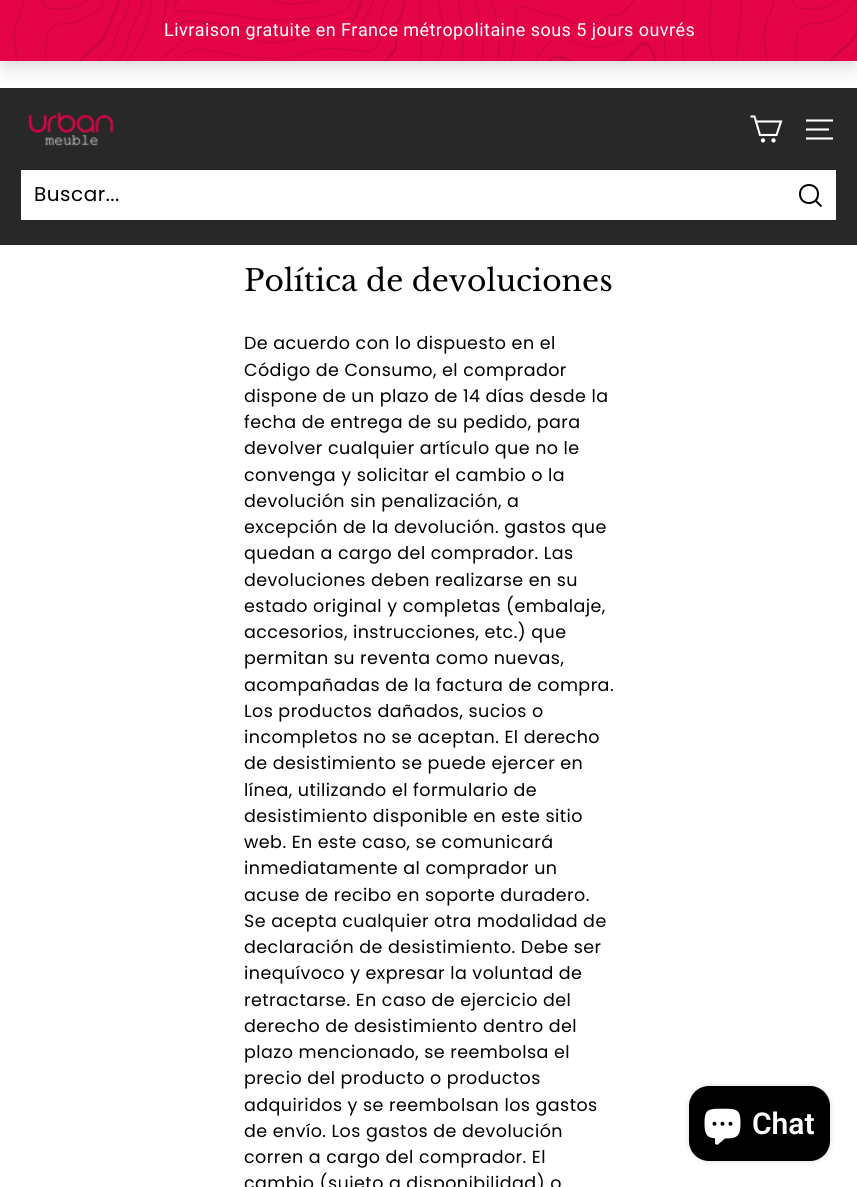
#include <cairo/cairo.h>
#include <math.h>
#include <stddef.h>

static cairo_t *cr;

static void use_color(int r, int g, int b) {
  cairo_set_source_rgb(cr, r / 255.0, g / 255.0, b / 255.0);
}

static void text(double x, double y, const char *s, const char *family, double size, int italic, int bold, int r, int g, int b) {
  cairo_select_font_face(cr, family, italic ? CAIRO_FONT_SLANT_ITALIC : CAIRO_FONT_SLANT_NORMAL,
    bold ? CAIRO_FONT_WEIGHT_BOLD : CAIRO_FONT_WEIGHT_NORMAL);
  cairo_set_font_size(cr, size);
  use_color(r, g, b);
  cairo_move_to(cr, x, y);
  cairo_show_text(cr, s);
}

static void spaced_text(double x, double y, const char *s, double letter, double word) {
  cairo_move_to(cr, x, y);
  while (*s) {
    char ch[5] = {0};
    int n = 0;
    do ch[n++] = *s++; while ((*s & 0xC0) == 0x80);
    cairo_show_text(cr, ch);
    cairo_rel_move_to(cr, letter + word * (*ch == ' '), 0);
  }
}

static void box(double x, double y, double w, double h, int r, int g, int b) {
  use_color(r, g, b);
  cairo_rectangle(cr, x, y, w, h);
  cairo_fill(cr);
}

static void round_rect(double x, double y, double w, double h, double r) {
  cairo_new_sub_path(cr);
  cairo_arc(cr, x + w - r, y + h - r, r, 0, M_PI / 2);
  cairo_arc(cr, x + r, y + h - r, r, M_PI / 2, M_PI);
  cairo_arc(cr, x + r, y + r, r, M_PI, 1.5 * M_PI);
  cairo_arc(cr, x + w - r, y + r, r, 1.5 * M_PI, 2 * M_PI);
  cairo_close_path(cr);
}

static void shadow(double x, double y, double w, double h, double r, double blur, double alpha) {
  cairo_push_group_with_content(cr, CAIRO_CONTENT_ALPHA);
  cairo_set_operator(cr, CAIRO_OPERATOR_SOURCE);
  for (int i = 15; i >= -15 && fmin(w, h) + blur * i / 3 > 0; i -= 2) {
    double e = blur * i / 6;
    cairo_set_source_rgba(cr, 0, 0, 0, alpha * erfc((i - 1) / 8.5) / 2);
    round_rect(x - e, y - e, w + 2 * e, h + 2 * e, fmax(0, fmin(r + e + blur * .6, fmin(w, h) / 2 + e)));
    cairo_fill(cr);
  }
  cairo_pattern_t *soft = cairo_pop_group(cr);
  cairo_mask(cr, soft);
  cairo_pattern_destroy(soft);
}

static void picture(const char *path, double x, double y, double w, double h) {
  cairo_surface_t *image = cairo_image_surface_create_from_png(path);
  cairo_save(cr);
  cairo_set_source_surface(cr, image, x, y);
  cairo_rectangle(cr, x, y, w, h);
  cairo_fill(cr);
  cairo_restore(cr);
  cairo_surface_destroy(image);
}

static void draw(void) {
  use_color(255, 255, 255);
  cairo_paint(cr);
  use_color(0, 0, 0);
  shadow(3, 8, 852, 56, 0, 4, 0.05);
  box(0, 88, 857, 82, 40, 40, 40);
  use_color(0, 0, 0);
  shadow(4, 16, 850, 54, 0, 9.5, 0.1);
  box(0, 0, 857, 61, 229, 4, 72);
  picture("img_01.png", 13, 0, 844, 62);
  picture("img_02.png", 28, 112, 86, 34);
  cairo_new_path(cr);
  cairo_move_to(cr, 756, 121.5);
  cairo_line_to(cr, 781, 121.5);
  cairo_line_to(cr, 776.5, 135);
  cairo_line_to(cr, 760, 135);
  cairo_line_to(cr, 754.5, 116.5);
  cairo_line_to(cr, 750.5, 116.5);
  use_color(255, 255, 255);
  cairo_set_line_width(cr, 2.1);
  cairo_stroke(cr);
  cairo_arc(cr, 763, 140.4, 1.1, 0, 2 * M_PI);
  cairo_stroke(cr);
  cairo_arc(cr, 773.5, 140.4, 1.1, 0, 2 * M_PI);
  cairo_stroke(cr);
  cairo_new_path(cr);
  cairo_move_to(cr, 806, 120.5);
  cairo_line_to(cr, 833, 120.5);
  cairo_move_to(cr, 806, 129.5);
  cairo_line_to(cr, 829, 129.5);
  cairo_move_to(cr, 806, 138.5);
  cairo_line_to(cr, 833, 138.5);
  cairo_stroke(cr);
  use_color(40, 40, 40);
  cairo_new_path(cr);
  cairo_move_to(cr, 0, 170);
  cairo_line_to(cr, 0, 245);
  cairo_line_to(cr, 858, 245);
  cairo_line_to(cr, 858, 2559);
  cairo_line_to(cr, 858, 170);
  cairo_close_path(cr);
  cairo_fill(cr);
  box(21, 170, 815, 50, 255, 255, 255);
  cairo_new_path(cr);
  cairo_move_to(cr, 818, 194);
  cairo_curve_to(cr, 818, 206, 800, 206, 800, 194);
  cairo_curve_to(cr, 800, 182, 818, 182, 818, 194);
  cairo_close_path(cr);
  cairo_move_to(cr, 821.5, 206.5);
  cairo_line_to(cr, 815.5, 200.5);
  use_color(0, 0, 0);
  cairo_set_line_width(cr, 2);
  cairo_stroke(cr);
  use_color(0, 0, 0);
  shadow(689, 1086, 141, 75, 20, 3, 0.15);
  use_color(0, 0, 0);
  round_rect(689, 1086, 141, 75, 20);
  cairo_fill(cr);
  picture("img_03.png", 704, 1108, 37, 37);
  cairo_select_font_face(cr, "Roboto", CAIRO_FONT_SLANT_NORMAL, CAIRO_FONT_WEIGHT_NORMAL);
  cairo_set_font_size(cr, 18);
  use_color(255, 255, 255);
  spaced_text(164, 36, "Livraison gratuite en France métropolitaine sous 5 jours ouvrés", 0.45, 0);
  cairo_select_font_face(cr, "Poppins", CAIRO_FONT_SLANT_NORMAL, CAIRO_FONT_WEIGHT_NORMAL);
  cairo_set_font_size(cr, 20);
  use_color(0, 0, 0);
  spaced_text(34, 201, "Buscar...", 0.5, 0);
  text(244, 291, "Política de devoluciones", "Libre Baskerville", 29.75, 0, 0, 0, 0, 0);
  cairo_select_font_face(cr, "Poppins", CAIRO_FONT_SLANT_NORMAL, CAIRO_FONT_WEIGHT_NORMAL);
  cairo_set_font_size(cr, 17.5);
  spaced_text(244, 349, "De acuerdo con lo dispuesto en el", 0.45, 0);
  spaced_text(244, 376, "Código de Consumo, el comprador", 0.45, 0);
  spaced_text(244, 402, "dispone de un plazo de 14 días desde la", 0.45, 0);
  spaced_text(244, 428, "fecha de entrega de su pedido, para", 0.45, 0);
  spaced_text(244, 454, "devolver cualquier artículo que no le", 0.45, 0);
  spaced_text(244, 481, "convenga y solicitar el cambio o la", 0.45, 0);
  spaced_text(244, 507, "devolución sin penalización, a", 0.45, 0);
  spaced_text(244, 533, "excepción de la devolución. gastos que", 0.45, 0);
  spaced_text(244, 559, "quedan a cargo del comprador. Las", 0.45, 0);
  spaced_text(244, 586, "devoluciones deben realizarse en su", 0.45, 0);
  spaced_text(244, 612, "estado original y completas (embalaje,", 0.45, 0);
  spaced_text(244, 638, "accesorios, instrucciones, etc.) que", 0.45, 0);
  spaced_text(244, 664, "permitan su reventa como nuevas,", 0.45, 0);
  spaced_text(244, 691, "acompañadas de la factura de compra.", 0.45, 0);
  spaced_text(244, 717, "Los productos dañados, sucios o", 0.45, 0);
  spaced_text(244, 743, "incompletos no se aceptan. El derecho", 0.45, 0);
  spaced_text(244, 769, "de desistimiento se puede ejercer en", 0.45, 0);
  spaced_text(244, 796, "línea, utilizando el formulario de", 0.45, 0);
  spaced_text(244, 822, "desistimiento disponible en este sitio", 0.45, 0);
  spaced_text(244, 848, "web. En este caso, se comunicará", 0.45, 0);
  spaced_text(244, 874, "inmediatamente al comprador un", 0.45, 0);
  spaced_text(244, 901, "acuse de recibo en soporte duradero.", 0.45, 0);
  spaced_text(244, 927, "Se acepta cualquier otra modalidad de", 0.45, 0);
  spaced_text(244, 953, "declaración de desistimiento. Debe ser", 0.45, 0);
  spaced_text(244, 979, "inequívoco y expresar la voluntad de", 0.45, 0);
  spaced_text(244, 1006, "retractarse. En caso de ejercicio del", 0.45, 0);
  spaced_text(244, 1032, "derecho de desistimiento dentro del", 0.45, 0);
  spaced_text(244, 1058, "plazo mencionado, se reembolsa el", 0.45, 0);
  spaced_text(244, 1084, "precio del producto o productos", 0.45, 0);
  spaced_text(244, 1111, "adquiridos y se reembolsan los gastos", 0.45, 0);
  spaced_text(244, 1137, "de envío. Los gastos de devolución", 0.45, 0);
  spaced_text(244, 1163, "corren a cargo del comprador. El", 0.45, 0);
  spaced_text(244, 1189, "cambio (sujeto a disponibilidad) o", 0.45, 0);
  text(752, 1134, "Chat", "Roboto SemiBold", 30, 0, 0, 255, 255, 255);
}

int main(void) {
  cairo_surface_t *surface = cairo_image_surface_create(CAIRO_FORMAT_RGB24, 857, 1187);
  cr = cairo_create(surface);
  cairo_font_options_t *options = cairo_font_options_create();
  cairo_font_options_set_hint_metrics(options, CAIRO_HINT_METRICS_OFF);
  cairo_font_options_set_hint_style(options, CAIRO_HINT_STYLE_NONE);
  cairo_set_font_options(cr, options);
  cairo_set_miter_limit(cr, 4);
  draw();
  cairo_surface_write_to_png(surface, "out.png");
  cairo_font_options_destroy(options);
  cairo_destroy(cr);
  cairo_surface_destroy(surface);
  return 0;
}
